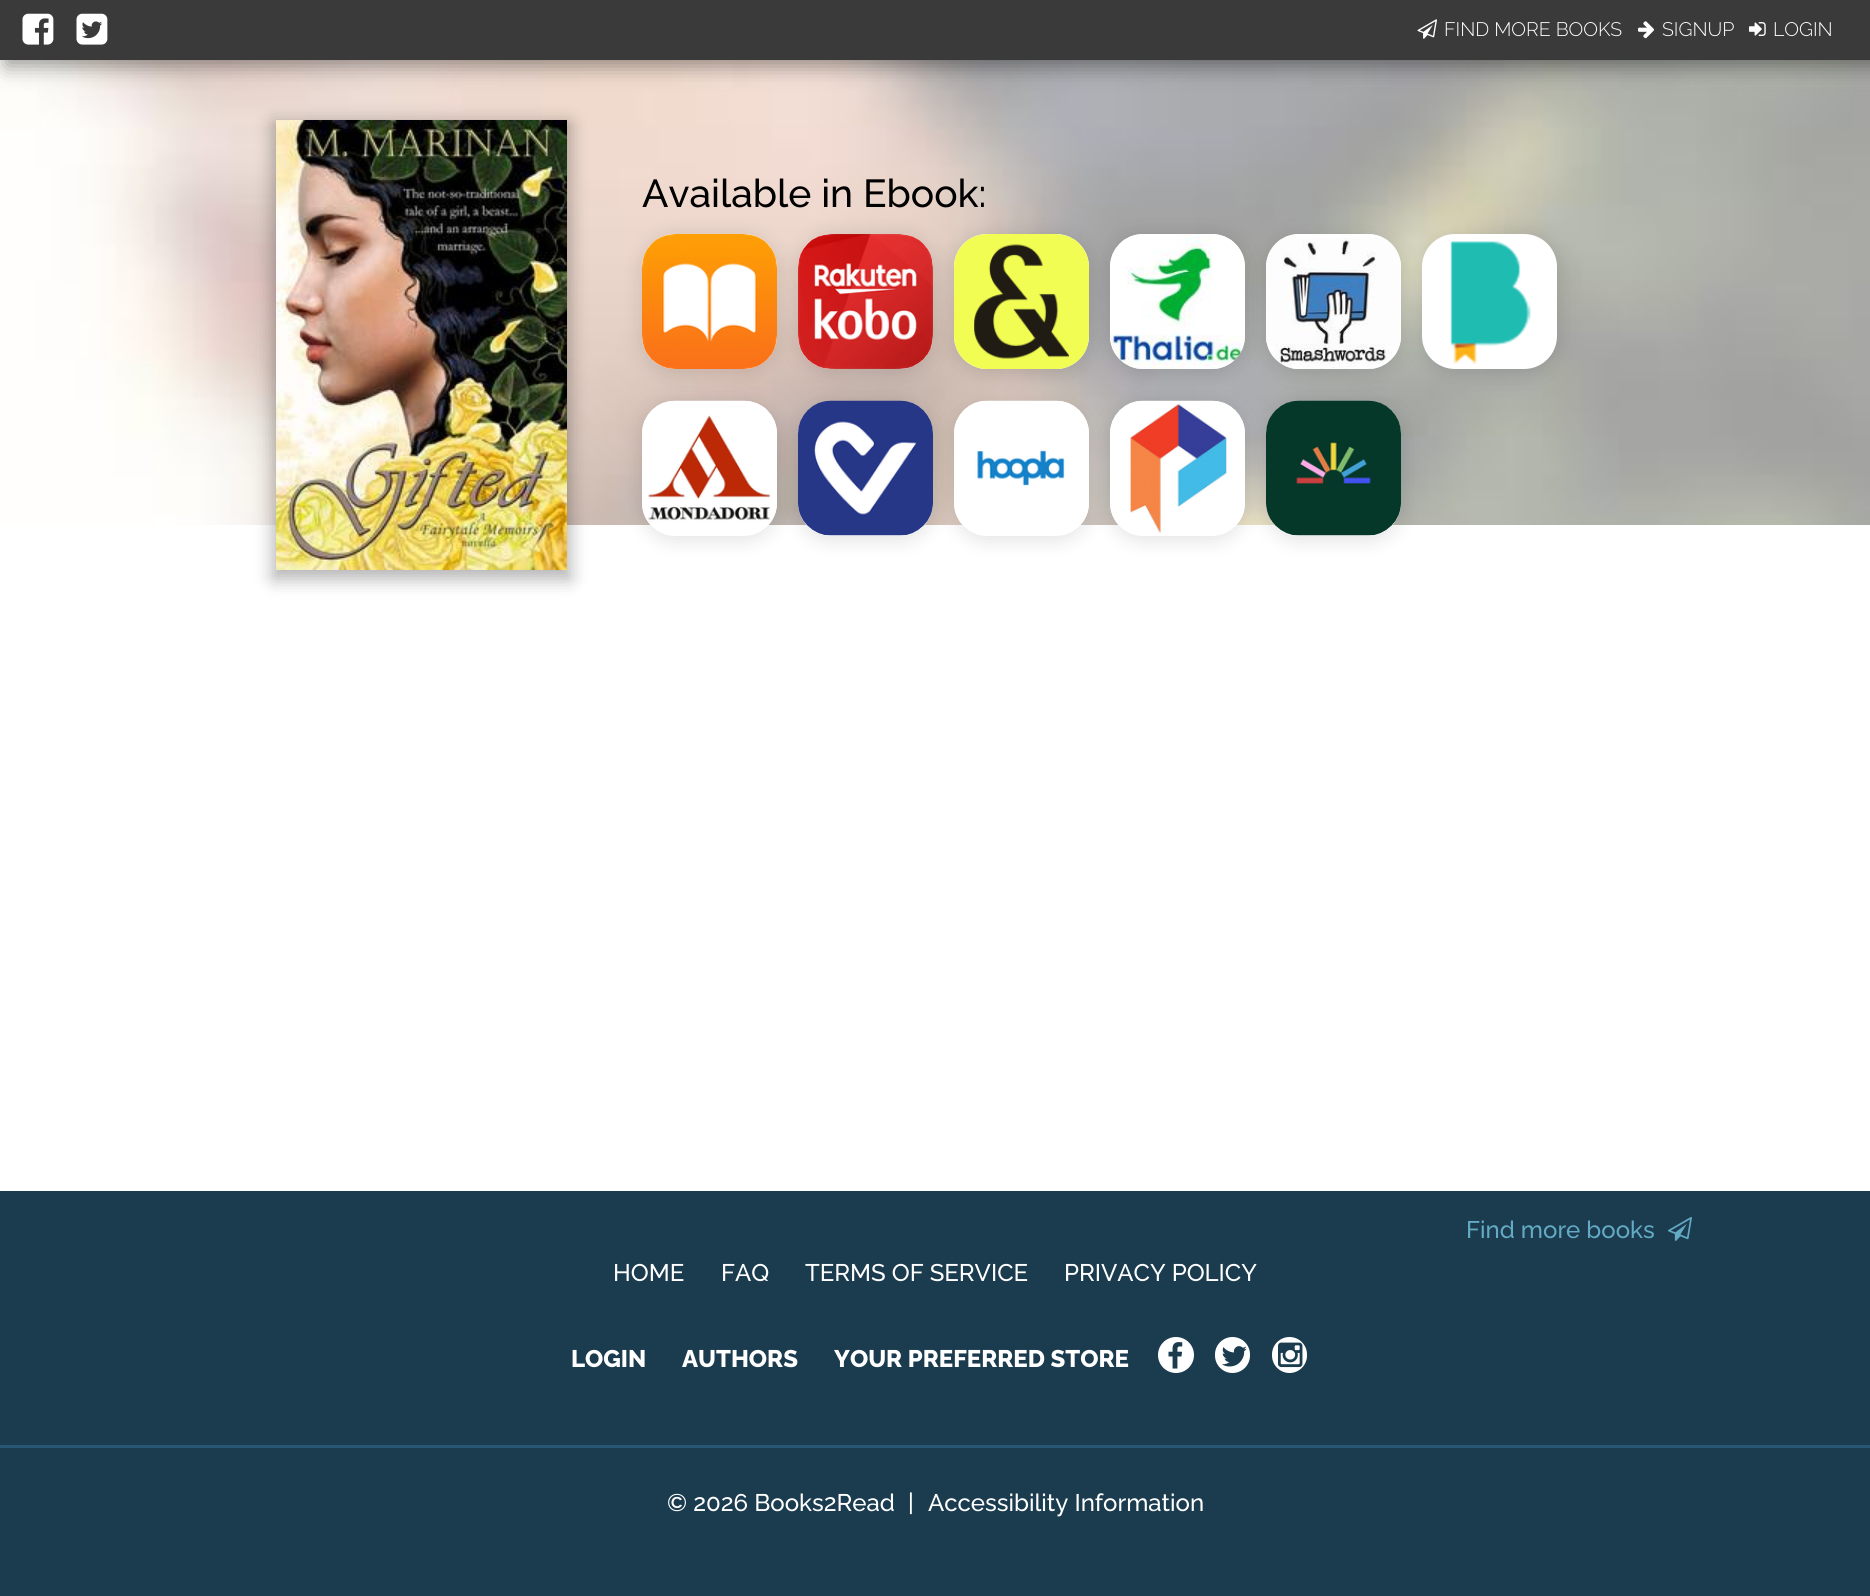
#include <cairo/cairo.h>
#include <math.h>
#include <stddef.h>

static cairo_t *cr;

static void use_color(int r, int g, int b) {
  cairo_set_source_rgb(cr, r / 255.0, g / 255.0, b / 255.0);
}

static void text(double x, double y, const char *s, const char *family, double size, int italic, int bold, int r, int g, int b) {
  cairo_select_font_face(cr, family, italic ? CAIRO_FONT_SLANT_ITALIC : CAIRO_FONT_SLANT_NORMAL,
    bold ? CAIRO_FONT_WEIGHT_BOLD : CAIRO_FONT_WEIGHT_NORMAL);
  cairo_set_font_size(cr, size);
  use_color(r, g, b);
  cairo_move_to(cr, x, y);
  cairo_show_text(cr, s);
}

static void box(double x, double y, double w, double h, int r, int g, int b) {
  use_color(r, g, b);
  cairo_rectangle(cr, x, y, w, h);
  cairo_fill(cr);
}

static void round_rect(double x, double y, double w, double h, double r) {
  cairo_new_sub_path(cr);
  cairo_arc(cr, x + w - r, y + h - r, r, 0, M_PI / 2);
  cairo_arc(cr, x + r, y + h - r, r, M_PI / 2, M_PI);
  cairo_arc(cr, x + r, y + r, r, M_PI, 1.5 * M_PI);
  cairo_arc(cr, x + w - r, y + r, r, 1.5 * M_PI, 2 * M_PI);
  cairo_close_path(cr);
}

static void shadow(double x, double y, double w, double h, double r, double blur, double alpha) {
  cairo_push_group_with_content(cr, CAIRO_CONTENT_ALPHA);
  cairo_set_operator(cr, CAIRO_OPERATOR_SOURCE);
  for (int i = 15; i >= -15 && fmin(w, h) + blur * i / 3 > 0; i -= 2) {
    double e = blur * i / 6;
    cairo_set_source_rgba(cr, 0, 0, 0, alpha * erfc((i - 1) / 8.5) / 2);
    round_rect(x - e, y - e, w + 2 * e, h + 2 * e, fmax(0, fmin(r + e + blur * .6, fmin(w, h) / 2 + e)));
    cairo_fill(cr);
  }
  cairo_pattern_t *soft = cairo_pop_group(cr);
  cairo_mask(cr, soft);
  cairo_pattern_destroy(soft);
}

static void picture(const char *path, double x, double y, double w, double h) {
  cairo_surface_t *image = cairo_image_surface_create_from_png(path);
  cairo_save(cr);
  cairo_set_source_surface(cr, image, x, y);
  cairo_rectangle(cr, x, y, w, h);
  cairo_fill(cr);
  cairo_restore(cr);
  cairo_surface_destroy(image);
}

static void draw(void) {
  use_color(255, 255, 255);
  cairo_paint(cr);
  picture("img_01.png", 0, 60, 1870, 465);
  use_color(0, 0, 0);
  shadow(6, 6, 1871, 60, 0, 10.5, 0.4);
  box(0, 0, 1870, 60, 58, 58, 58);
  picture("img_02.png", 22, 13, 32, 32);
  picture("img_03.png", 76, 13, 32, 32);
  picture("img_04.png", 1417, 19, 20, 20);
  picture("img_05.png", 1638, 21, 16, 18);
  picture("img_06.png", 1749, 22, 17, 14);
  use_color(0, 0, 0);
  shadow(273, 123, 297, 456, 0, 9, 0.3);
  picture("img_07.png", 276, 120, 291, 450);
  shadow(639, 234, 141, 141, 36, 9, 0.1);
  use_color(255, 255, 255);
  round_rect(642, 234, 135, 135, 33);
  cairo_fill(cr);
  picture("img_08.png", 642, 234, 135, 135);
  use_color(0, 0, 0);
  shadow(795, 234, 141, 141, 36, 9, 0.1);
  use_color(255, 255, 255);
  round_rect(798, 234, 135, 135, 33);
  cairo_fill(cr);
  picture("img_09.png", 798, 234, 135, 135);
  use_color(0, 0, 0);
  shadow(951, 234, 141, 141, 36, 9, 0.1);
  use_color(255, 255, 255);
  round_rect(954, 234, 135, 135, 33);
  cairo_fill(cr);
  picture("img_10.png", 954, 234, 135, 135);
  use_color(0, 0, 0);
  shadow(1107, 234, 141, 141, 36, 9, 0.1);
  use_color(255, 255, 255);
  round_rect(1110, 234, 135, 135, 33);
  cairo_fill(cr);
  picture("img_11.png", 1110, 234, 135, 135);
  use_color(0, 0, 0);
  shadow(1263, 234, 141, 141, 36, 9, 0.1);
  use_color(255, 255, 255);
  round_rect(1266, 234, 135, 135, 33);
  cairo_fill(cr);
  picture("img_12.png", 1266, 234, 135, 135);
  use_color(0, 0, 0);
  shadow(1419, 234, 141, 141, 36, 9, 0.1);
  use_color(255, 255, 255);
  round_rect(1422, 234, 135, 135, 33);
  cairo_fill(cr);
  picture("img_13.png", 1450, 241, 81, 123);
  use_color(0, 0, 0);
  shadow(639, 401, 141, 141, 36, 9, 0.1);
  use_color(255, 255, 255);
  round_rect(642, 401, 135, 135, 33);
  cairo_fill(cr);
  picture("img_14.png", 642, 400, 135, 125);
  use_color(0, 0, 0);
  shadow(795, 401, 141, 141, 36, 9, 0.1);
  use_color(255, 255, 255);
  round_rect(798, 401, 135, 135, 33);
  cairo_fill(cr);
  picture("img_15.png", 798, 400, 135, 136);
  use_color(0, 0, 0);
  shadow(951, 401, 141, 141, 36, 9, 0.1);
  use_color(255, 255, 255);
  round_rect(954, 401, 135, 135, 33);
  cairo_fill(cr);
  picture("img_16.png", 954, 400, 135, 123);
  use_color(0, 0, 0);
  shadow(1107, 401, 141, 141, 36, 9, 0.1);
  use_color(255, 255, 255);
  round_rect(1110, 401, 135, 135, 33);
  cairo_fill(cr);
  picture("img_17.png", 1110, 400, 135, 133);
  use_color(0, 0, 0);
  shadow(1263, 401, 141, 141, 36, 9, 0.1);
  use_color(255, 255, 255);
  round_rect(1266, 401, 135, 135, 33);
  cairo_fill(cr);
  picture("img_18.png", 1266, 400, 135, 136);
  box(0, 1191, 1870, 405, 27, 59, 79);
  picture("img_19.png", 1668, 1217, 24, 24);
  use_color(255, 255, 255);
  cairo_arc(cr, 1176, 1355, 18, 0, 2 * M_PI);
  cairo_fill(cr);
  picture("img_20.png", 1168, 1342, 15, 27);
  round_rect(1215, 1337, 35, 36, 17.5);
  cairo_fill(cr);
  picture("img_21.png", 1221, 1346, 26, 21);
  round_rect(1272, 1337, 35, 36, 17.5);
  cairo_fill(cr);
  picture("img_22.png", 1278, 1342, 25, 26);
  box(0, 1445, 1870, 3, 40, 87, 117);
  text(1444, 36, "FIND MORE BOOKS", "Raleway Light", 19.5, 0, 0, 255, 255, 255);
  text(1662, 36, "SIGNUP", "Raleway Light", 19.5, 0, 0, 255, 255, 255);
  text(1773, 36, "LOGIN", "Raleway Light", 19.5, 0, 0, 255, 255, 255);
  text(642, 207, "Available in Ebook:", "Raleway Medium", 39, 0, 0, 0, 0, 0);
  text(1466, 1238, "Find more books", "Raleway Medium", 24, 0, 0, 99, 170, 197);
  text(613, 1281, "HOME", "Raleway Medium", 24, 0, 0, 255, 255, 255);
  text(721, 1281, "FAQ", "Raleway Medium", 24, 0, 0, 255, 255, 255);
  text(805, 1281, "TERMS OF SERVICE", "Raleway Medium", 24, 0, 0, 255, 255, 255);
  text(1064, 1281, "PRIVACY POLICY", "Raleway Medium", 24, 0, 0, 255, 255, 255);
  text(571, 1367, "LOGIN", "Raleway ExtraBold", 24, 0, 0, 255, 255, 255);
  text(682, 1367, "AUTHORS", "Raleway ExtraBold", 24, 0, 0, 255, 255, 255);
  text(834, 1367, "YOUR PREFERRED STORE", "Raleway ExtraBold", 24, 0, 0, 255, 255, 255);
  text(667, 1511, "© 2026 Books2Read", "Raleway Medium", 24, 0, 0, 255, 255, 255);
  text(908, 1511, "|", "Raleway Medium", 24, 0, 0, 255, 255, 255);
  text(928, 1511, "Accessibility Information", "Raleway Medium", 24, 0, 0, 255, 255, 255);
}

int main(void) {
  cairo_surface_t *surface = cairo_image_surface_create(CAIRO_FORMAT_RGB24, 1870, 1596);
  cr = cairo_create(surface);
  cairo_font_options_t *options = cairo_font_options_create();
  cairo_font_options_set_hint_metrics(options, CAIRO_HINT_METRICS_OFF);
  cairo_font_options_set_hint_style(options, CAIRO_HINT_STYLE_NONE);
  cairo_set_font_options(cr, options);
  cairo_set_miter_limit(cr, 4);
  draw();
  cairo_surface_write_to_png(surface, "out.png");
  cairo_font_options_destroy(options);
  cairo_destroy(cr);
  cairo_surface_destroy(surface);
  return 0;
}
